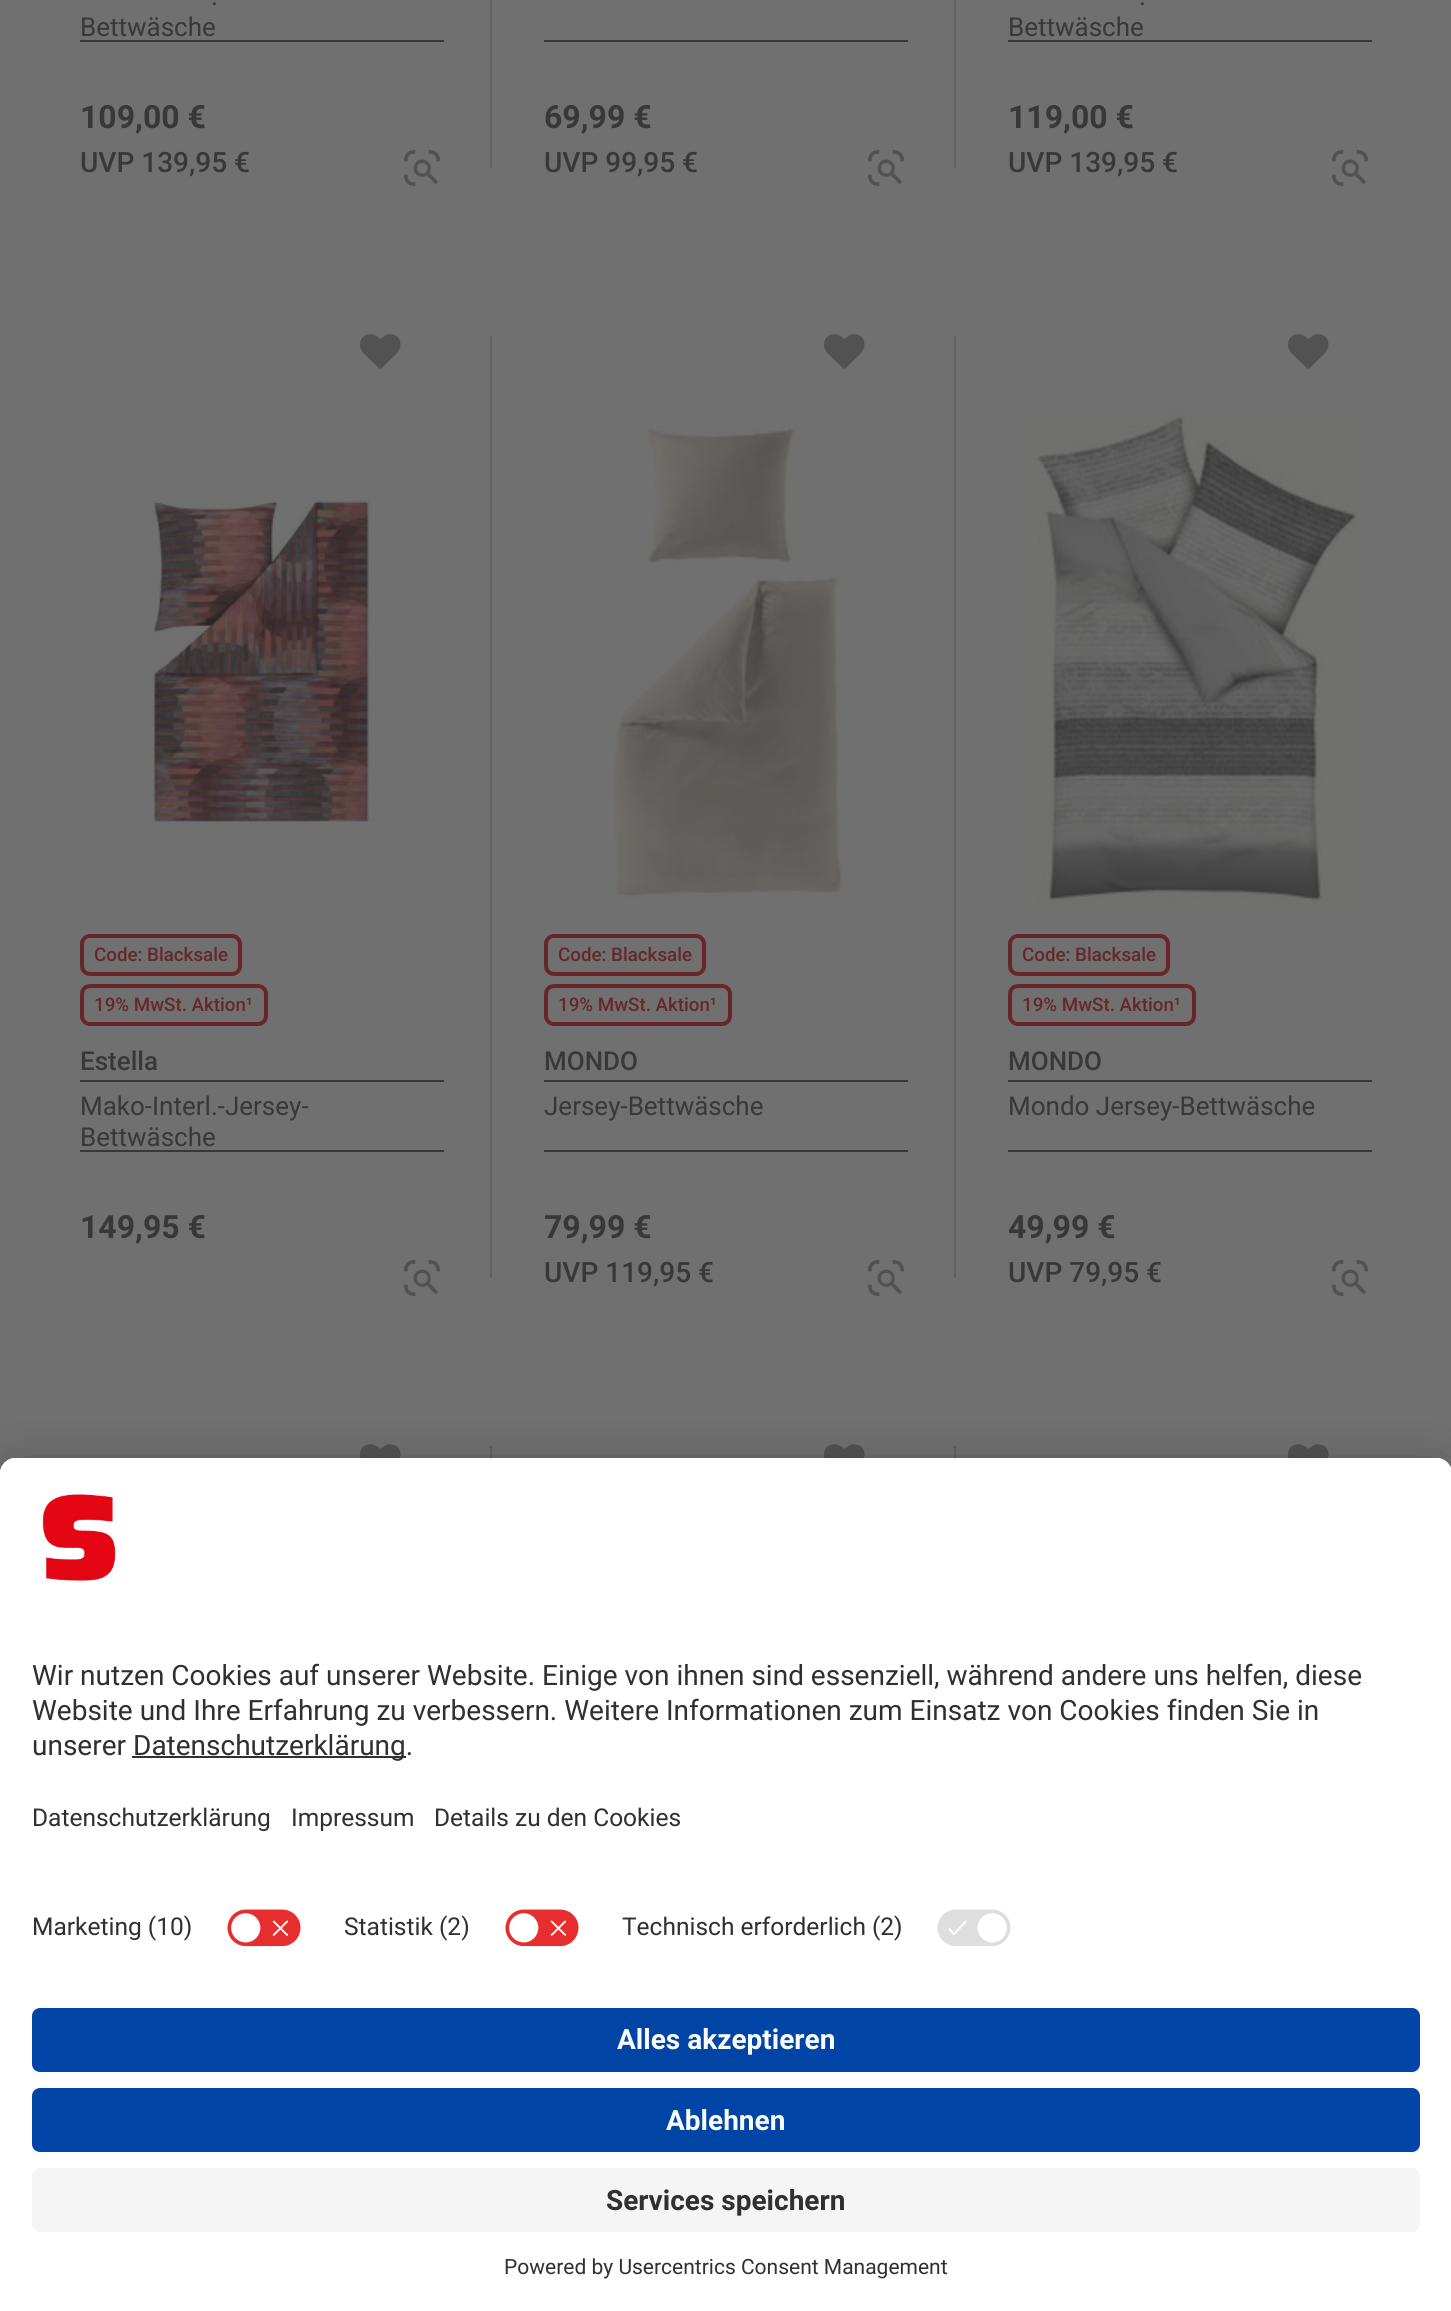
#include <cairo/cairo.h>
#include <math.h>
#include <stddef.h>

static cairo_t *cr;

static void use_color(int r, int g, int b) {
  cairo_set_source_rgb(cr, r / 255.0, g / 255.0, b / 255.0);
}

static void text(double x, double y, const char *s, const char *family, double size, int italic, int bold, int r, int g, int b) {
  cairo_select_font_face(cr, family, italic ? CAIRO_FONT_SLANT_ITALIC : CAIRO_FONT_SLANT_NORMAL,
    bold ? CAIRO_FONT_WEIGHT_BOLD : CAIRO_FONT_WEIGHT_NORMAL);
  cairo_set_font_size(cr, size);
  use_color(r, g, b);
  cairo_move_to(cr, x, y);
  cairo_show_text(cr, s);
}

static void box(double x, double y, double w, double h, int r, int g, int b) {
  use_color(r, g, b);
  cairo_rectangle(cr, x, y, w, h);
  cairo_fill(cr);
}

static void round_rect(double x, double y, double w, double h, double r) {
  cairo_new_sub_path(cr);
  cairo_arc(cr, x + w - r, y + h - r, r, 0, M_PI / 2);
  cairo_arc(cr, x + r, y + h - r, r, M_PI / 2, M_PI);
  cairo_arc(cr, x + r, y + r, r, M_PI, 1.5 * M_PI);
  cairo_arc(cr, x + w - r, y + r, r, 1.5 * M_PI, 2 * M_PI);
  cairo_close_path(cr);
}

static void shadow(double x, double y, double w, double h, double r, double blur, double alpha) {
  cairo_push_group_with_content(cr, CAIRO_CONTENT_ALPHA);
  cairo_set_operator(cr, CAIRO_OPERATOR_SOURCE);
  for (int i = 15; i >= -15 && fmin(w, h) + blur * i / 3 > 0; i -= 2) {
    double e = blur * i / 6;
    cairo_set_source_rgba(cr, 0, 0, 0, alpha * erfc((i - 1) / 8.5) / 2);
    round_rect(x - e, y - e, w + 2 * e, h + 2 * e, fmax(0, fmin(r + e + blur * .6, fmin(w, h) / 2 + e)));
    cairo_fill(cr);
  }
  cairo_pattern_t *soft = cairo_pop_group(cr);
  cairo_mask(cr, soft);
  cairo_pattern_destroy(soft);
}

static void picture(const char *path, double x, double y, double w, double h) {
  cairo_surface_t *image = cairo_image_surface_create_from_png(path);
  cairo_save(cr);
  cairo_set_source_surface(cr, image, x, y);
  cairo_rectangle(cr, x, y, w, h);
  cairo_fill(cr);
  cairo_restore(cr);
  cairo_surface_destroy(image);
}

static void draw(void) {
  use_color(112, 112, 112);
  cairo_paint(cr);
  box(80, 40, 364, 2, 56, 56, 56);
  picture("img_01.png", 404, 150, 36, 36);
  box(490, 0, 2, 168, 97, 97, 97);
  box(544, 40, 364, 2, 56, 56, 56);
  picture("img_01.png", 868, 150, 36, 36);
  box(954, 0, 2, 168, 97, 97, 97);
  box(1008, 40, 364, 2, 56, 56, 56);
  picture("img_01.png", 1332, 150, 36, 36);
  picture("img_02.png", 360, 334, 41, 35);
  picture("img_03.png", 148, 493, 229, 331);
  round_rect(82, 936, 158, 38, 8);
  use_color(104, 38, 42);
  cairo_set_line_width(cr, 4);
  cairo_stroke(cr);
  round_rect(82, 986, 184, 38, 8);
  cairo_stroke(cr);
  box(80, 1080, 364, 2, 56, 56, 56);
  box(80, 1150, 364, 2, 56, 56, 56);
  picture("img_01.png", 404, 1260, 36, 36);
  box(490, 336, 2, 942, 97, 97, 97);
  picture("img_02.png", 824, 334, 41, 35);
  picture("img_04.png", 605, 424, 239, 476);
  round_rect(546, 936, 158, 38, 8);
  use_color(104, 38, 42);
  cairo_stroke(cr);
  round_rect(546, 986, 184, 38, 8);
  cairo_stroke(cr);
  box(544, 1080, 364, 2, 56, 56, 56);
  box(544, 1150, 364, 2, 56, 56, 56);
  picture("img_01.png", 868, 1260, 36, 36);
  box(954, 336, 2, 942, 97, 97, 97);
  picture("img_02.png", 1288, 334, 41, 35);
  picture("img_05.png", 1020, 408, 340, 510);
  round_rect(1010, 936, 158, 38, 8);
  use_color(104, 38, 42);
  cairo_stroke(cr);
  round_rect(1010, 986, 184, 38, 8);
  cairo_stroke(cr);
  box(1008, 1080, 364, 2, 56, 56, 56);
  box(1008, 1150, 364, 2, 56, 56, 56);
  picture("img_01.png", 1332, 1260, 36, 36);
  picture("img_06.png", 360, 1444, 41, 14);
  box(490, 1446, 2, 12, 97, 97, 97);
  picture("img_06.png", 824, 1444, 41, 14);
  box(954, 1446, 2, 12, 97, 97, 97);
  picture("img_06.png", 1288, 1444, 41, 14);
  use_color(0, 0, 0);
  shadow(0, 1498, 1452, 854, 16, 28, 0.3);
  shadow(0, 1468, 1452, 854, 16, 26, 0.22);
  use_color(255, 255, 255);
  cairo_new_path(cr);
  cairo_move_to(cr, 16, 1458);
  cairo_line_to(cr, 1436, 1458);
  cairo_curve_to(cr, 1445, 1458, 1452, 1465, 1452, 1474);
  cairo_line_to(cr, 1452, 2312);
  cairo_line_to(cr, 0, 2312);
  cairo_line_to(cr, 0, 1474);
  cairo_curve_to(cr, 0, 1465, 7, 1458, 16, 1458);
  cairo_close_path(cr);
  cairo_fill(cr);
  cairo_new_path(cr);
  cairo_move_to(cr, 16, 1458);
  cairo_line_to(cr, 1436, 1458);
  cairo_curve_to(cr, 1445, 1458, 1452, 1465, 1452, 1474);
  cairo_line_to(cr, 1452, 1984);
  cairo_line_to(cr, 0, 1984);
  cairo_line_to(cr, 0, 1474);
  cairo_curve_to(cr, 0, 1465, 7, 1458, 16, 1458);
  cairo_close_path(cr);
  cairo_fill(cr);
  cairo_new_path(cr);
  cairo_move_to(cr, 16, 1458);
  cairo_line_to(cr, 1436, 1458);
  cairo_curve_to(cr, 1445, 1458, 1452, 1465, 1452, 1474);
  cairo_line_to(cr, 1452, 1896);
  cairo_line_to(cr, 0, 1896);
  cairo_line_to(cr, 0, 1474);
  cairo_curve_to(cr, 0, 1465, 7, 1458, 16, 1458);
  cairo_close_path(cr);
  cairo_fill(cr);
  picture("img_07.png", 42, 1494, 74, 87);
  box(132, 1756, 274, 2, 48, 48, 48);
  picture("img_08.png", 227, 1909, 74, 38);
  picture("img_08.png", 505, 1909, 74, 38);
  picture("img_09.png", 937, 1909, 74, 37);
  use_color(0, 69, 165);
  round_rect(32, 2008, 1388, 64, 8);
  cairo_fill(cr);
  round_rect(32, 2088, 1388, 64, 8);
  cairo_fill(cr);
  use_color(245, 245, 245);
  round_rect(32, 2168, 1388, 64, 8);
  cairo_fill(cr);
  text(211, 5, ".", "Roboto", 26, 0, 0, 56, 56, 56);
  text(80, 36, "Bettwäsche", "Roboto", 26, 0, 0, 56, 56, 56);
  text(80, 128, "109,00 €", "Roboto", 32, 0, 1, 56, 56, 56);
  text(80, 172, "UVP 139,95 €", "Roboto Medium", 28, 0, 0, 56, 56, 56);
  text(544, 128, "69,99 €", "Roboto", 32, 0, 1, 56, 56, 56);
  text(544, 172, "UVP 99,95 €", "Roboto Medium", 28, 0, 0, 56, 56, 56);
  text(1139, 5, ".", "Roboto", 26, 0, 0, 56, 56, 56);
  text(1008, 36, "Bettwäsche", "Roboto", 26, 0, 0, 56, 56, 56);
  text(1008, 128, "119,00 €", "Roboto", 32, 0, 1, 56, 56, 56);
  text(1008, 172, "UVP 139,95 €", "Roboto Medium", 28, 0, 0, 56, 56, 56);
  text(94, 961, "Code: Blacksale", "Roboto Medium", 18.75, 0, 0, 104, 38, 42);
  text(94, 1011, "19% MwSt. Aktion¹", "Roboto Medium", 18.75, 0, 0, 104, 38, 42);
  text(80, 1070, "Estella", "Roboto Medium", 26, 0, 0, 56, 56, 56);
  text(80, 1115, "Mako-Interl.-Jersey-", "Roboto", 26, 0, 0, 56, 56, 56);
  text(80, 1146, "Bettwäsche", "Roboto", 26, 0, 0, 56, 56, 56);
  text(80, 1238, "149,95 €", "Roboto", 32, 0, 1, 56, 56, 56);
  text(558, 961, "Code: Blacksale", "Roboto Medium", 18.75, 0, 0, 104, 38, 42);
  text(558, 1011, "19% MwSt. Aktion¹", "Roboto Medium", 18.75, 0, 0, 104, 38, 42);
  text(544, 1070, "MONDO", "Roboto Medium", 26, 0, 0, 56, 56, 56);
  text(544, 1115, "Jersey-Bettwäsche", "Roboto", 26, 0, 0, 56, 56, 56);
  text(544, 1238, "79,99 €", "Roboto", 32, 0, 1, 56, 56, 56);
  text(544, 1282, "UVP 119,95 €", "Roboto Medium", 28, 0, 0, 56, 56, 56);
  text(1022, 961, "Code: Blacksale", "Roboto Medium", 18.75, 0, 0, 104, 38, 42);
  text(1022, 1011, "19% MwSt. Aktion¹", "Roboto Medium", 18.75, 0, 0, 104, 38, 42);
  text(1008, 1070, "MONDO", "Roboto Medium", 26, 0, 0, 56, 56, 56);
  text(1008, 1115, "Mondo Jersey-Bettwäsche", "Roboto", 26, 0, 0, 56, 56, 56);
  text(1008, 1238, "49,99 €", "Roboto", 32, 0, 1, 56, 56, 56);
  text(1008, 1282, "UVP 79,95 €", "Roboto Medium", 28, 0, 0, 56, 56, 56);
  text(32, 1685, "Wir nutzen Cookies auf unserer Website. Einige von ihnen sind essenziell, während andere uns helfen, diese", "Roboto", 28, 0, 0, 48, 48, 48);
  text(32, 1720, "Website und Ihre Erfahrung zu verbessern. Weitere Informationen zum Einsatz von Cookies finden Sie in", "Roboto", 28, 0, 0, 48, 48, 48);
  text(32, 1755, "unserer", "Roboto", 28, 0, 0, 48, 48, 48);
  text(133, 1755, "Datenschutzerklärung.", "Roboto", 28, 0, 0, 48, 48, 48);
  text(32, 1826, "Datenschutzerklärung", "Roboto", 24.5, 0, 0, 48, 48, 48);
  text(291, 1826, "Impressum", "Roboto", 24.5, 0, 0, 48, 48, 48);
  text(434, 1826, "Details zu den Cookies", "Roboto", 24.5, 0, 0, 48, 48, 48);
  text(32, 1935, "Marketing (10)", "Roboto", 24.5, 0, 0, 48, 48, 48);
  text(344, 1935, "Statistik (2)", "Roboto", 24.5, 0, 0, 48, 48, 48);
  text(622, 1935, "Technisch erforderlich (2)", "Roboto", 24.5, 0, 0, 48, 48, 48);
  text(617, 2049, "Alles akzeptieren", "Roboto", 28, 0, 1, 250, 250, 250);
  text(666, 2130, "Ablehnen", "Roboto", 28, 0, 1, 250, 250, 250);
  text(606, 2210, "Services speichern", "Roboto", 28, 0, 1, 48, 48, 48);
  text(504, 2274, "Powered by Usercentrics Consent Management", "Roboto", 21, 0, 0, 48, 48, 48);
}

int main(void) {
  cairo_surface_t *surface = cairo_image_surface_create(CAIRO_FORMAT_RGB24, 1451, 2311);
  cr = cairo_create(surface);
  cairo_font_options_t *options = cairo_font_options_create();
  cairo_font_options_set_hint_metrics(options, CAIRO_HINT_METRICS_OFF);
  cairo_font_options_set_hint_style(options, CAIRO_HINT_STYLE_NONE);
  cairo_set_font_options(cr, options);
  cairo_set_miter_limit(cr, 4);
  draw();
  cairo_surface_write_to_png(surface, "out.png");
  cairo_font_options_destroy(options);
  cairo_destroy(cr);
  cairo_surface_destroy(surface);
  return 0;
}
